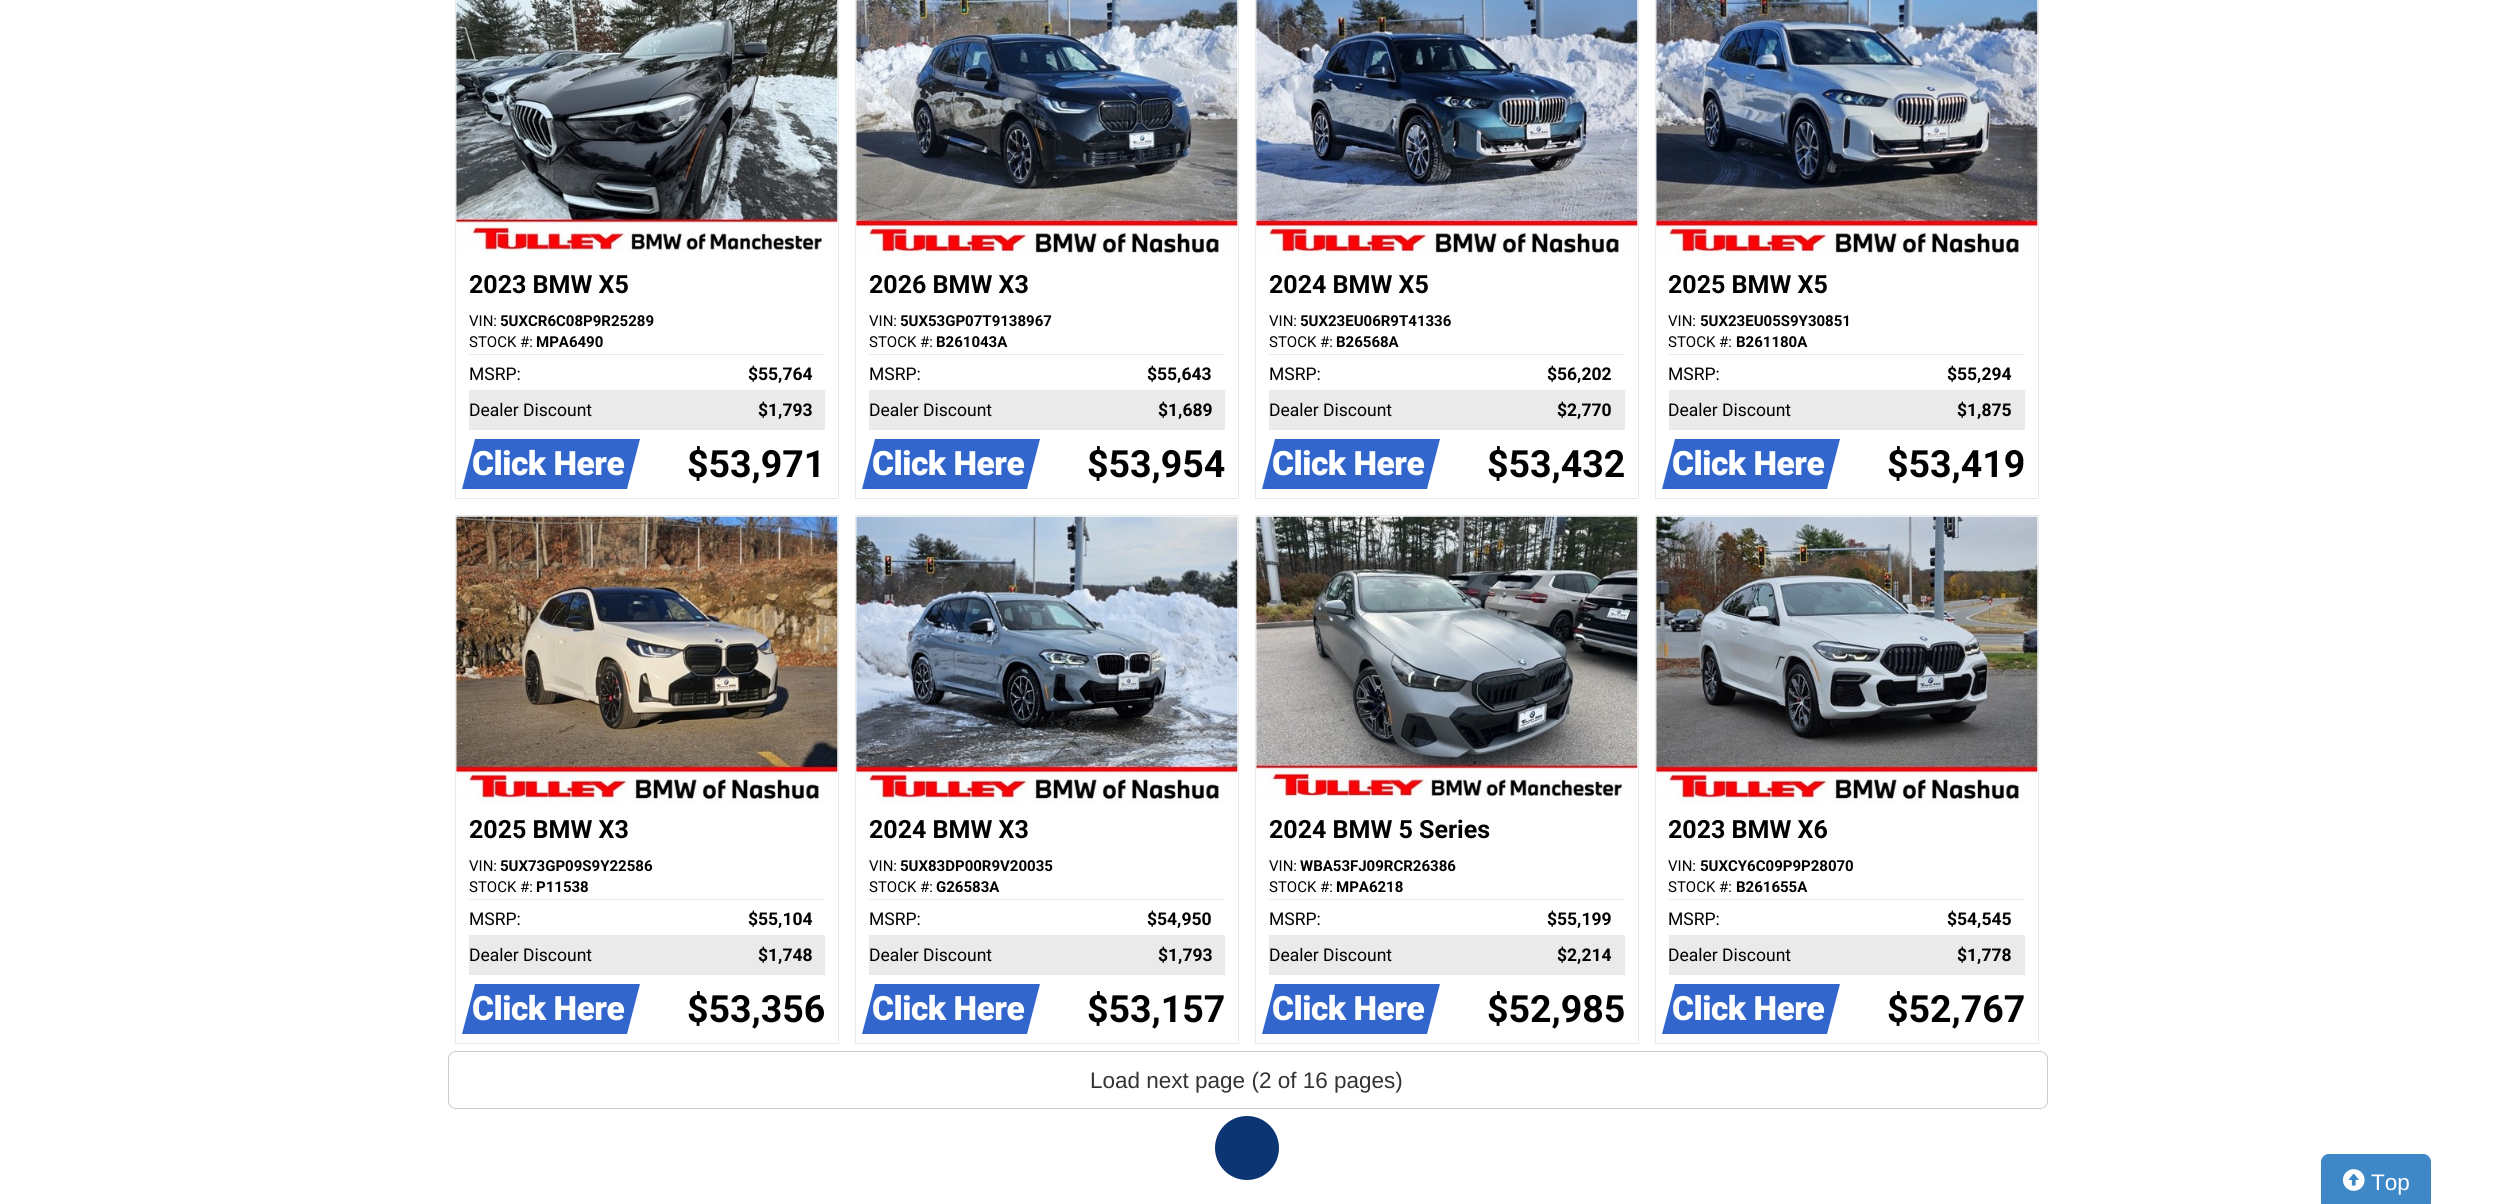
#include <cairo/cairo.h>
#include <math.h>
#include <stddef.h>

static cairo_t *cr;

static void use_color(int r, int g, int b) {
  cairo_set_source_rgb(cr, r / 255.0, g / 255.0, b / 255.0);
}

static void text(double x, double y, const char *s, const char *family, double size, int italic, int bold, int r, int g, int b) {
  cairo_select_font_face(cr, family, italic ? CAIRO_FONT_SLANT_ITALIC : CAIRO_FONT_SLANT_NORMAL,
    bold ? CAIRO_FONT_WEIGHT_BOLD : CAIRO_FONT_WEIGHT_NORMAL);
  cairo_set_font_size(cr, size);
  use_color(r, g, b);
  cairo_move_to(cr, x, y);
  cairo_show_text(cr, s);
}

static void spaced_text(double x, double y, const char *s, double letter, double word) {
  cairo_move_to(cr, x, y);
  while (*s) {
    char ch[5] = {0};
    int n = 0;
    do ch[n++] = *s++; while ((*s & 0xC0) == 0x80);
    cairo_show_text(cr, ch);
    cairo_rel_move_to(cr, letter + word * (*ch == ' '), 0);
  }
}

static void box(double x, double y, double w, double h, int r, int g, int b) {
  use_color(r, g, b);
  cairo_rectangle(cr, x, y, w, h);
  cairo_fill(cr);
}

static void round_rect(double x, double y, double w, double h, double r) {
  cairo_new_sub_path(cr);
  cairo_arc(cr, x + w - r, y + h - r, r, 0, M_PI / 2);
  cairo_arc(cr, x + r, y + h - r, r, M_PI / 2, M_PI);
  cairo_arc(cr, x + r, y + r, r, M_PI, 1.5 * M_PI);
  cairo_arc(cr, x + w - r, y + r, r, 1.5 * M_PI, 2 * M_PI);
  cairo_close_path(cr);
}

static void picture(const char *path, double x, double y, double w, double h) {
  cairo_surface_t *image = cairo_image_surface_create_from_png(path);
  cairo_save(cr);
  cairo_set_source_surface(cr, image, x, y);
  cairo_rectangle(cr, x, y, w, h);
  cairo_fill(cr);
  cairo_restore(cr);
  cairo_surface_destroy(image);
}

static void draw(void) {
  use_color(255, 255, 255);
  cairo_paint(cr);
  cairo_rectangle(cr, 455.5, -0.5, 383, 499);
  use_color(230, 234, 234);
  cairo_set_line_width(cr, 1);
  cairo_stroke(cr);
  picture("img_01.png", 456, 0, 382, 252);
  box(469, 354, 356, 1, 230, 234, 234);
  box(469, 390, 356, 1, 230, 234, 234);
  box(469, 391, 356, 37, 234, 234, 234);
  box(469, 428, 356, 2, 230, 234, 234);
  use_color(50, 102, 204);
  cairo_new_path(cr);
  cairo_move_to(cr, 475, 439);
  cairo_line_to(cr, 640, 439);
  cairo_line_to(cr, 627, 489);
  cairo_line_to(cr, 462, 489);
  cairo_close_path(cr);
  cairo_fill(cr);
  cairo_rectangle(cr, 855.5, -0.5, 383, 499);
  use_color(230, 234, 234);
  cairo_stroke(cr);
  picture("img_02.png", 856, 0, 382, 257);
  box(869, 354, 356, 1, 230, 234, 234);
  box(869, 390, 356, 1, 230, 234, 234);
  box(869, 391, 356, 37, 234, 234, 234);
  box(869, 428, 356, 2, 230, 234, 234);
  use_color(50, 102, 204);
  cairo_new_path(cr);
  cairo_move_to(cr, 875, 439);
  cairo_line_to(cr, 1040, 439);
  cairo_line_to(cr, 1027, 489);
  cairo_line_to(cr, 862, 489);
  cairo_close_path(cr);
  cairo_fill(cr);
  cairo_rectangle(cr, 1255.5, -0.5, 383, 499);
  use_color(230, 234, 234);
  cairo_stroke(cr);
  picture("img_03.png", 1256, 0, 382, 257);
  box(1269, 354, 356, 1, 230, 234, 234);
  box(1269, 390, 356, 1, 230, 234, 234);
  box(1269, 391, 356, 37, 234, 234, 234);
  box(1269, 428, 356, 2, 230, 234, 234);
  use_color(50, 102, 204);
  cairo_new_path(cr);
  cairo_move_to(cr, 1275, 439);
  cairo_line_to(cr, 1440, 439);
  cairo_line_to(cr, 1427, 489);
  cairo_line_to(cr, 1262, 489);
  cairo_close_path(cr);
  cairo_fill(cr);
  cairo_rectangle(cr, 1655.5, -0.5, 383, 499);
  use_color(230, 234, 234);
  cairo_stroke(cr);
  picture("img_04.png", 1656, 0, 382, 257);
  box(1669, 354, 356, 1, 230, 234, 234);
  box(1669, 390, 356, 1, 230, 234, 234);
  box(1669, 391, 356, 37, 234, 234, 234);
  box(1669, 428, 356, 2, 230, 234, 234);
  use_color(50, 102, 204);
  cairo_new_path(cr);
  cairo_move_to(cr, 1675, 439);
  cairo_line_to(cr, 1840, 439);
  cairo_line_to(cr, 1827, 489);
  cairo_line_to(cr, 1662, 489);
  cairo_close_path(cr);
  cairo_fill(cr);
  cairo_rectangle(cr, 455.5, 515.5, 383, 528);
  use_color(230, 234, 234);
  cairo_stroke(cr);
  picture("img_05.png", 456, 516, 382, 287);
  box(469, 899, 356, 1, 230, 234, 234);
  box(469, 935, 356, 1, 230, 234, 234);
  box(469, 936, 356, 37, 234, 234, 234);
  box(469, 973, 356, 2, 230, 234, 234);
  use_color(50, 102, 204);
  cairo_new_path(cr);
  cairo_move_to(cr, 475, 984);
  cairo_line_to(cr, 640, 984);
  cairo_line_to(cr, 627, 1034);
  cairo_line_to(cr, 462, 1034);
  cairo_close_path(cr);
  cairo_fill(cr);
  cairo_rectangle(cr, 855.5, 515.5, 383, 528);
  use_color(230, 234, 234);
  cairo_stroke(cr);
  picture("img_06.png", 856, 516, 382, 287);
  box(869, 899, 356, 1, 230, 234, 234);
  box(869, 935, 356, 1, 230, 234, 234);
  box(869, 936, 356, 37, 234, 234, 234);
  box(869, 973, 356, 2, 230, 234, 234);
  use_color(50, 102, 204);
  cairo_new_path(cr);
  cairo_move_to(cr, 875, 984);
  cairo_line_to(cr, 1040, 984);
  cairo_line_to(cr, 1027, 1034);
  cairo_line_to(cr, 862, 1034);
  cairo_close_path(cr);
  cairo_fill(cr);
  cairo_rectangle(cr, 1255.5, 515.5, 383, 528);
  use_color(230, 234, 234);
  cairo_stroke(cr);
  picture("img_07.png", 1256, 516, 382, 283);
  box(1269, 899, 356, 1, 230, 234, 234);
  box(1269, 935, 356, 1, 230, 234, 234);
  box(1269, 936, 356, 37, 234, 234, 234);
  box(1269, 973, 356, 2, 230, 234, 234);
  use_color(50, 102, 204);
  cairo_new_path(cr);
  cairo_move_to(cr, 1275, 984);
  cairo_line_to(cr, 1440, 984);
  cairo_line_to(cr, 1427, 1034);
  cairo_line_to(cr, 1262, 1034);
  cairo_close_path(cr);
  cairo_fill(cr);
  cairo_rectangle(cr, 1655.5, 515.5, 383, 528);
  use_color(230, 234, 234);
  cairo_stroke(cr);
  picture("img_08.png", 1656, 516, 382, 287);
  box(1669, 899, 356, 1, 230, 234, 234);
  box(1669, 935, 356, 1, 230, 234, 234);
  box(1669, 936, 356, 37, 234, 234, 234);
  box(1669, 973, 356, 2, 230, 234, 234);
  use_color(50, 102, 204);
  cairo_new_path(cr);
  cairo_move_to(cr, 1675, 984);
  cairo_line_to(cr, 1840, 984);
  cairo_line_to(cr, 1827, 1034);
  cairo_line_to(cr, 1662, 1034);
  cairo_close_path(cr);
  cairo_fill(cr);
  round_rect(448.5, 1051.5, 1599, 57, 7.5);
  use_color(204, 204, 204);
  cairo_stroke(cr);
  use_color(11, 53, 115);
  cairo_arc(cr, 1247, 1148, 32, 0, 2 * M_PI);
  cairo_fill(cr);
  use_color(63, 136, 199);
  round_rect(2321.5, 1154.5, 109, 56, 7.5);
  cairo_fill_preserve(cr);
  cairo_stroke(cr);
  picture("img_09.png", 2342, 1169, 23, 22);
  text(469, 293, "2023 BMW X5", "Roboto", 25, 0, 1, 0, 0, 0);
  text(469, 326, "VIN:", "Roboto", 15, 0, 0, 0, 0, 0);
  text(500, 326, "5UXCR6C08P9R25289", "Roboto", 15, 0, 1, 0, 0, 0);
  text(469, 347, "STOCK #:", "Roboto", 15, 0, 0, 0, 0, 0);
  text(536, 347, "MPA6490", "Roboto", 15, 0, 1, 0, 0, 0);
  text(469, 380, "MSRP:", "Roboto", 17.5, 0, 0, 0, 0, 0);
  text(748, 380, "$55,764", "Roboto", 17.5, 0, 1, 0, 0, 0);
  text(469, 416, "Dealer Discount", "Roboto", 17.5, 0, 0, 0, 0, 0);
  text(758, 416, "$1,793", "Roboto", 17.5, 0, 1, 0, 0, 0);
  cairo_select_font_face(cr, "Roboto Black", CAIRO_FONT_SLANT_NORMAL, CAIRO_FONT_WEIGHT_NORMAL);
  cairo_set_font_size(cr, 33.5);
  use_color(255, 255, 255);
  spaced_text(472, 475, "Click Here", -0.5, 0);
  text(687, 477, "$53,971", "Roboto", 37.5, 0, 1, 0, 0, 0);
  text(869, 293, "2026 BMW X3", "Roboto", 25, 0, 1, 0, 0, 0);
  text(869, 326, "VIN:", "Roboto", 15, 0, 0, 0, 0, 0);
  text(900, 326, "5UX53GP07T9138967", "Roboto", 15, 0, 1, 0, 0, 0);
  text(869, 347, "STOCK #:", "Roboto", 15, 0, 0, 0, 0, 0);
  text(936, 347, "B261043A", "Roboto", 15, 0, 1, 0, 0, 0);
  text(869, 380, "MSRP:", "Roboto", 17.5, 0, 0, 0, 0, 0);
  text(1147, 380, "$55,643", "Roboto", 17.5, 0, 1, 0, 0, 0);
  text(869, 416, "Dealer Discount", "Roboto", 17.5, 0, 0, 0, 0, 0);
  text(1158, 416, "$1,689", "Roboto", 17.5, 0, 1, 0, 0, 0);
  cairo_select_font_face(cr, "Roboto Black", CAIRO_FONT_SLANT_NORMAL, CAIRO_FONT_WEIGHT_NORMAL);
  cairo_set_font_size(cr, 33.5);
  use_color(255, 255, 255);
  spaced_text(872, 475, "Click Here", -0.5, 0);
  text(1087, 477, "$53,954", "Roboto", 37.5, 0, 1, 0, 0, 0);
  text(1269, 293, "2024 BMW X5", "Roboto", 25, 0, 1, 0, 0, 0);
  text(1269, 326, "VIN:", "Roboto", 15, 0, 0, 0, 0, 0);
  text(1300, 326, "5UX23EU06R9T41336", "Roboto", 15, 0, 1, 0, 0, 0);
  text(1269, 347, "STOCK #:", "Roboto", 15, 0, 0, 0, 0, 0);
  text(1336, 347, "B26568A", "Roboto", 15, 0, 1, 0, 0, 0);
  text(1269, 380, "MSRP:", "Roboto", 17.5, 0, 0, 0, 0, 0);
  text(1547, 380, "$56,202", "Roboto", 17.5, 0, 1, 0, 0, 0);
  text(1269, 416, "Dealer Discount", "Roboto", 17.5, 0, 0, 0, 0, 0);
  text(1557, 416, "$2,770", "Roboto", 17.5, 0, 1, 0, 0, 0);
  cairo_select_font_face(cr, "Roboto Black", CAIRO_FONT_SLANT_NORMAL, CAIRO_FONT_WEIGHT_NORMAL);
  cairo_set_font_size(cr, 33.5);
  use_color(255, 255, 255);
  spaced_text(1272, 475, "Click Here", -0.5, 0);
  text(1487, 477, "$53,432", "Roboto", 37.5, 0, 1, 0, 0, 0);
  text(1668, 293, "2025 BMW X5", "Roboto", 25, 0, 1, 0, 0, 0);
  text(1668, 326, "VIN:", "Roboto", 15, 0, 0, 0, 0, 0);
  text(1700, 326, "5UX23EU05S9Y30851", "Roboto", 15, 0, 1, 0, 0, 0);
  text(1668, 347, "STOCK #:", "Roboto", 15, 0, 0, 0, 0, 0);
  text(1736, 347, "B261180A", "Roboto", 15, 0, 1, 0, 0, 0);
  text(1668, 380, "MSRP:", "Roboto", 17.5, 0, 0, 0, 0, 0);
  text(1947, 380, "$55,294", "Roboto", 17.5, 0, 1, 0, 0, 0);
  text(1668, 416, "Dealer Discount", "Roboto", 17.5, 0, 0, 0, 0, 0);
  text(1957, 416, "$1,875", "Roboto", 17.5, 0, 1, 0, 0, 0);
  cairo_select_font_face(cr, "Roboto Black", CAIRO_FONT_SLANT_NORMAL, CAIRO_FONT_WEIGHT_NORMAL);
  cairo_set_font_size(cr, 33.5);
  use_color(255, 255, 255);
  spaced_text(1672, 475, "Click Here", -0.5, 0);
  text(1887, 477, "$53,419", "Roboto", 37.5, 0, 1, 0, 0, 0);
  text(469, 838, "2025 BMW X3", "Roboto", 25, 0, 1, 0, 0, 0);
  text(469, 871, "VIN:", "Roboto", 15, 0, 0, 0, 0, 0);
  text(500, 871, "5UX73GP09S9Y22586", "Roboto", 15, 0, 1, 0, 0, 0);
  text(469, 892, "STOCK #:", "Roboto", 15, 0, 0, 0, 0, 0);
  text(536, 892, "P11538", "Roboto", 15, 0, 1, 0, 0, 0);
  text(469, 925, "MSRP:", "Roboto", 17.5, 0, 0, 0, 0, 0);
  text(748, 925, "$55,104", "Roboto", 17.5, 0, 1, 0, 0, 0);
  text(469, 961, "Dealer Discount", "Roboto", 17.5, 0, 0, 0, 0, 0);
  text(758, 961, "$1,748", "Roboto", 17.5, 0, 1, 0, 0, 0);
  cairo_select_font_face(cr, "Roboto Black", CAIRO_FONT_SLANT_NORMAL, CAIRO_FONT_WEIGHT_NORMAL);
  cairo_set_font_size(cr, 33.5);
  use_color(255, 255, 255);
  spaced_text(472, 1020, "Click Here", -0.5, 0);
  text(687, 1022, "$53,356", "Roboto", 37.5, 0, 1, 0, 0, 0);
  text(869, 838, "2024 BMW X3", "Roboto", 25, 0, 1, 0, 0, 0);
  text(869, 871, "VIN:", "Roboto", 15, 0, 0, 0, 0, 0);
  text(900, 871, "5UX83DP00R9V20035", "Roboto", 15, 0, 1, 0, 0, 0);
  text(869, 892, "STOCK #:", "Roboto", 15, 0, 0, 0, 0, 0);
  text(936, 892, "G26583A", "Roboto", 15, 0, 1, 0, 0, 0);
  text(869, 925, "MSRP:", "Roboto", 17.5, 0, 0, 0, 0, 0);
  text(1147, 925, "$54,950", "Roboto", 17.5, 0, 1, 0, 0, 0);
  text(869, 961, "Dealer Discount", "Roboto", 17.5, 0, 0, 0, 0, 0);
  text(1158, 961, "$1,793", "Roboto", 17.5, 0, 1, 0, 0, 0);
  cairo_select_font_face(cr, "Roboto Black", CAIRO_FONT_SLANT_NORMAL, CAIRO_FONT_WEIGHT_NORMAL);
  cairo_set_font_size(cr, 33.5);
  use_color(255, 255, 255);
  spaced_text(872, 1020, "Click Here", -0.5, 0);
  text(1087, 1022, "$53,157", "Roboto", 37.5, 0, 1, 0, 0, 0);
  text(1269, 838, "2024 BMW 5 Series", "Roboto", 25, 0, 1, 0, 0, 0);
  text(1269, 871, "VIN:", "Roboto", 15, 0, 0, 0, 0, 0);
  text(1300, 871, "WBA53FJ09RCR26386", "Roboto", 15, 0, 1, 0, 0, 0);
  text(1269, 892, "STOCK #:", "Roboto", 15, 0, 0, 0, 0, 0);
  text(1336, 892, "MPA6218", "Roboto", 15, 0, 1, 0, 0, 0);
  text(1269, 925, "MSRP:", "Roboto", 17.5, 0, 0, 0, 0, 0);
  text(1547, 925, "$55,199", "Roboto", 17.5, 0, 1, 0, 0, 0);
  text(1269, 961, "Dealer Discount", "Roboto", 17.5, 0, 0, 0, 0, 0);
  text(1557, 961, "$2,214", "Roboto", 17.5, 0, 1, 0, 0, 0);
  cairo_select_font_face(cr, "Roboto Black", CAIRO_FONT_SLANT_NORMAL, CAIRO_FONT_WEIGHT_NORMAL);
  cairo_set_font_size(cr, 33.5);
  use_color(255, 255, 255);
  spaced_text(1272, 1020, "Click Here", -0.5, 0);
  text(1487, 1022, "$52,985", "Roboto", 37.5, 0, 1, 0, 0, 0);
  text(1668, 838, "2023 BMW X6", "Roboto", 25, 0, 1, 0, 0, 0);
  text(1668, 871, "VIN:", "Roboto", 15, 0, 0, 0, 0, 0);
  text(1700, 871, "5UXCY6C09P9P28070", "Roboto", 15, 0, 1, 0, 0, 0);
  text(1668, 892, "STOCK #:", "Roboto", 15, 0, 0, 0, 0, 0);
  text(1736, 892, "B261655A", "Roboto", 15, 0, 1, 0, 0, 0);
  text(1668, 925, "MSRP:", "Roboto", 17.5, 0, 0, 0, 0, 0);
  text(1947, 925, "$54,545", "Roboto", 17.5, 0, 1, 0, 0, 0);
  text(1668, 961, "Dealer Discount", "Roboto", 17.5, 0, 0, 0, 0, 0);
  text(1957, 961, "$1,778", "Roboto", 17.5, 0, 1, 0, 0, 0);
  cairo_select_font_face(cr, "Roboto Black", CAIRO_FONT_SLANT_NORMAL, CAIRO_FONT_WEIGHT_NORMAL);
  cairo_set_font_size(cr, 33.5);
  use_color(255, 255, 255);
  spaced_text(1672, 1020, "Click Here", -0.5, 0);
  text(1887, 1022, "$52,767", "Roboto", 37.5, 0, 1, 0, 0, 0);
  text(1090, 1088, "Load next page (2 of 16 pages)", "Liberation Sans", 22.5, 0, 0, 51, 51, 51);
  text(2371, 1190, "Top", "Liberation Sans", 22.5, 0, 0, 255, 255, 255);
}

int main(void) {
  cairo_surface_t *surface = cairo_image_surface_create(CAIRO_FORMAT_RGB24, 2493, 1204);
  cr = cairo_create(surface);
  cairo_font_options_t *options = cairo_font_options_create();
  cairo_font_options_set_hint_metrics(options, CAIRO_HINT_METRICS_OFF);
  cairo_font_options_set_hint_style(options, CAIRO_HINT_STYLE_NONE);
  cairo_set_font_options(cr, options);
  cairo_set_miter_limit(cr, 4);
  draw();
  cairo_surface_write_to_png(surface, "out.png");
  cairo_font_options_destroy(options);
  cairo_destroy(cr);
  cairo_surface_destroy(surface);
  return 0;
}
